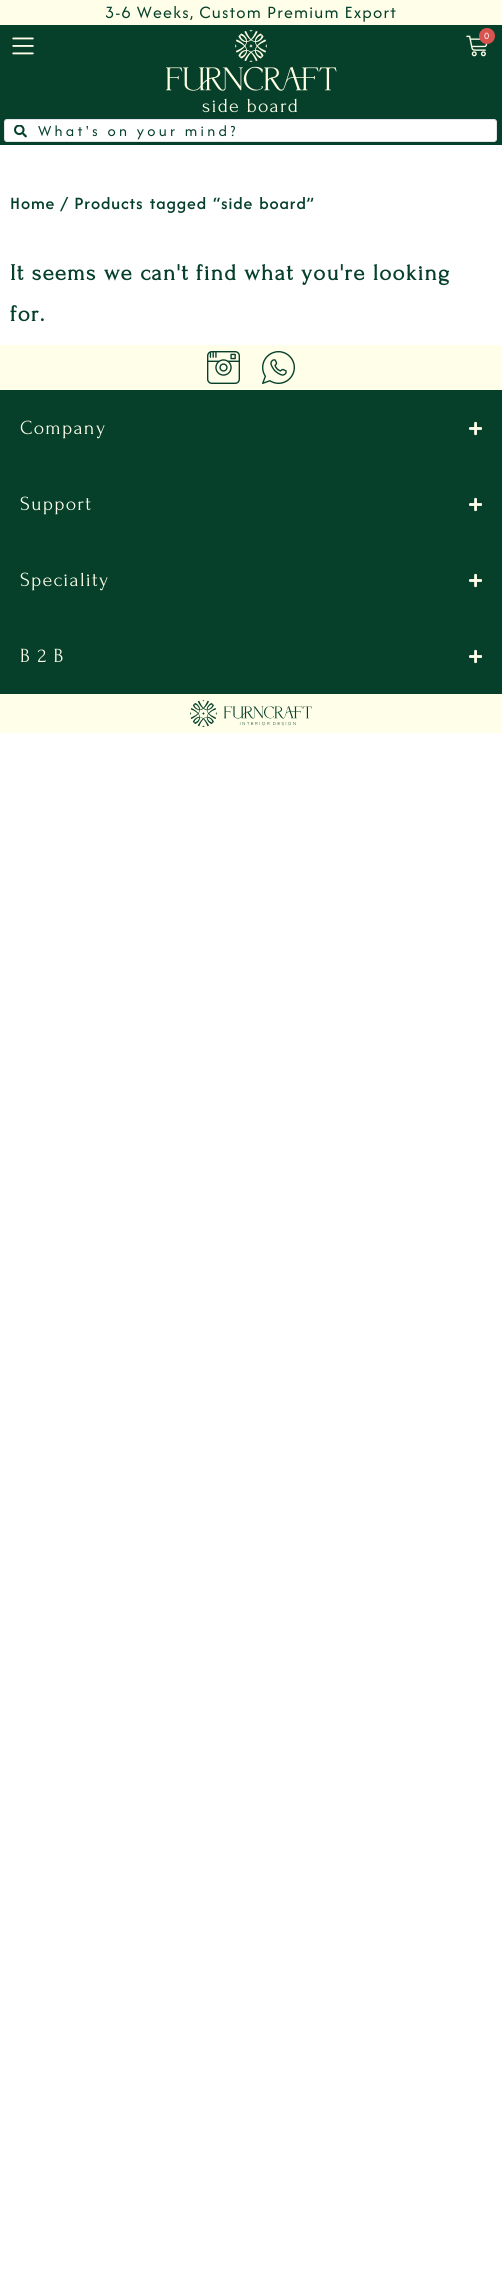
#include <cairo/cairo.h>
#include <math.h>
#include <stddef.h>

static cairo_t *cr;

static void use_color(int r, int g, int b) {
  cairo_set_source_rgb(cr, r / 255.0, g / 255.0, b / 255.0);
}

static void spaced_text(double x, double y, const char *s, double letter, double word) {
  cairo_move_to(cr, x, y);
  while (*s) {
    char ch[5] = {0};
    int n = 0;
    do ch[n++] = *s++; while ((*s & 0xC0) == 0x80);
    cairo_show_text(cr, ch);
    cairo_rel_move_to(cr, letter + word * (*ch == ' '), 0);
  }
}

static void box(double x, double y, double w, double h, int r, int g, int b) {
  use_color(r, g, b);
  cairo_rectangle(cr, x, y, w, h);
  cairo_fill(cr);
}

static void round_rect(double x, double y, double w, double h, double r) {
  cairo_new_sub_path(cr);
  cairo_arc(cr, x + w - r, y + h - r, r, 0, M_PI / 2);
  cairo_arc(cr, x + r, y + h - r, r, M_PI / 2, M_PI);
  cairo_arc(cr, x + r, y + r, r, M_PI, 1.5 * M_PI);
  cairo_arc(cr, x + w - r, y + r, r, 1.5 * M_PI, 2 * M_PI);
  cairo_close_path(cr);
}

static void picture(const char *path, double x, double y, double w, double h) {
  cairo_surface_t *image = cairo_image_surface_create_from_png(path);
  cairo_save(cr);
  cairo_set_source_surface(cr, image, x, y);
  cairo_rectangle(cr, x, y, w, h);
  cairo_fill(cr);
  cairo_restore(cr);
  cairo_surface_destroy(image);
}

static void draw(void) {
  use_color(255, 255, 255);
  cairo_paint(cr);
  box(0, 25, 502, 120, 6, 64, 43);
  box(0, 0, 502, 25, 255, 255, 233);
  picture("img_01.png", 235, 30, 32, 32);
  picture("img_02.png", 466, 35, 22, 22);
  use_color(217, 83, 79);
  cairo_arc(cr, 487, 36, 8, 0, 2 * M_PI);
  cairo_fill(cr);
  picture("img_03.png", 12, 37, 22, 18);
  picture("img_04.png", 166, 66, 171, 25);
  use_color(255, 255, 255);
  round_rect(4.5, 119.5, 492, 22, 2.5);
  cairo_fill_preserve(cr);
  use_color(225, 229, 235);
  cairo_set_line_width(cr, 1);
  cairo_stroke(cr);
  picture("img_05.png", 14, 125, 13, 13);
  box(0, 390, 502, 304, 6, 64, 43);
  box(0, 345, 502, 45, 255, 255, 233);
  picture("img_06.png", 207, 351, 33, 33);
  picture("img_07.png", 262, 351, 33, 33);
  picture("img_08.png", 469, 421, 13, 15);
  picture("img_08.png", 469, 497, 13, 15);
  picture("img_08.png", 469, 573, 13, 15);
  picture("img_08.png", 469, 649, 13, 15);
  box(0, 694, 502, 39, 255, 255, 233);
  picture("img_09.png", 190, 700, 122, 27);
  cairo_select_font_face(cr, "Afacad", CAIRO_FONT_SLANT_NORMAL, CAIRO_FONT_WEIGHT_NORMAL);
  cairo_set_font_size(cr, 18);
  use_color(6, 64, 43);
  spaced_text(105, 18, "3-6 Weeks, Custom Premium Export", 1.2, 0);
  cairo_set_font_size(cr, 10);
  use_color(255, 255, 255);
  spaced_text(484, 39, "0", 1.2, 0);
  cairo_select_font_face(cr, "Forum", CAIRO_FONT_SLANT_NORMAL, CAIRO_FONT_WEIGHT_NORMAL);
  cairo_set_font_size(cr, 20);
  use_color(255, 255, 233);
  spaced_text(202, 112, "side board", 1.2, 0);
  cairo_select_font_face(cr, "Afacad", CAIRO_FONT_SLANT_NORMAL, CAIRO_FONT_WEIGHT_NORMAL);
  cairo_set_font_size(cr, 16);
  use_color(6, 64, 43);
  spaced_text(38, 136, "What's on your mind?", 3.25, 0);
  cairo_select_font_face(cr, "Afacad Medium", CAIRO_FONT_SLANT_NORMAL, CAIRO_FONT_WEIGHT_NORMAL);
  cairo_set_font_size(cr, 18);
  spaced_text(10, 209, "Home", 0.9, 0);
  spaced_text(61, 209, "/ Products tagged “side board”", 0.9, 1.5);
  cairo_select_font_face(cr, "Forum", CAIRO_FONT_SLANT_NORMAL, CAIRO_FONT_WEIGHT_BOLD);
  cairo_set_font_size(cr, 23);
  spaced_text(10, 280, "It seems we can't find what you're looking", 1.2, 0);
  spaced_text(10, 321, "for.", 1.2, 0);
  cairo_select_font_face(cr, "Forum", CAIRO_FONT_SLANT_NORMAL, CAIRO_FONT_WEIGHT_NORMAL);
  cairo_set_font_size(cr, 20);
  use_color(255, 255, 233);
  spaced_text(20, 434, "Company", 1.2, 0);
  spaced_text(20, 510, "Support", 1.2, 0);
  spaced_text(20, 586, "Speciality", 1.2, 0);
  spaced_text(20, 662, "B 2 B", 1.2, 0);
}

int main(void) {
  cairo_surface_t *surface = cairo_image_surface_create(CAIRO_FORMAT_RGB24, 502, 2272);
  cr = cairo_create(surface);
  cairo_font_options_t *options = cairo_font_options_create();
  cairo_font_options_set_hint_metrics(options, CAIRO_HINT_METRICS_OFF);
  cairo_font_options_set_hint_style(options, CAIRO_HINT_STYLE_NONE);
  cairo_set_font_options(cr, options);
  cairo_set_miter_limit(cr, 4);
  draw();
  cairo_surface_write_to_png(surface, "out.png");
  cairo_font_options_destroy(options);
  cairo_destroy(cr);
  cairo_surface_destroy(surface);
  return 0;
}
